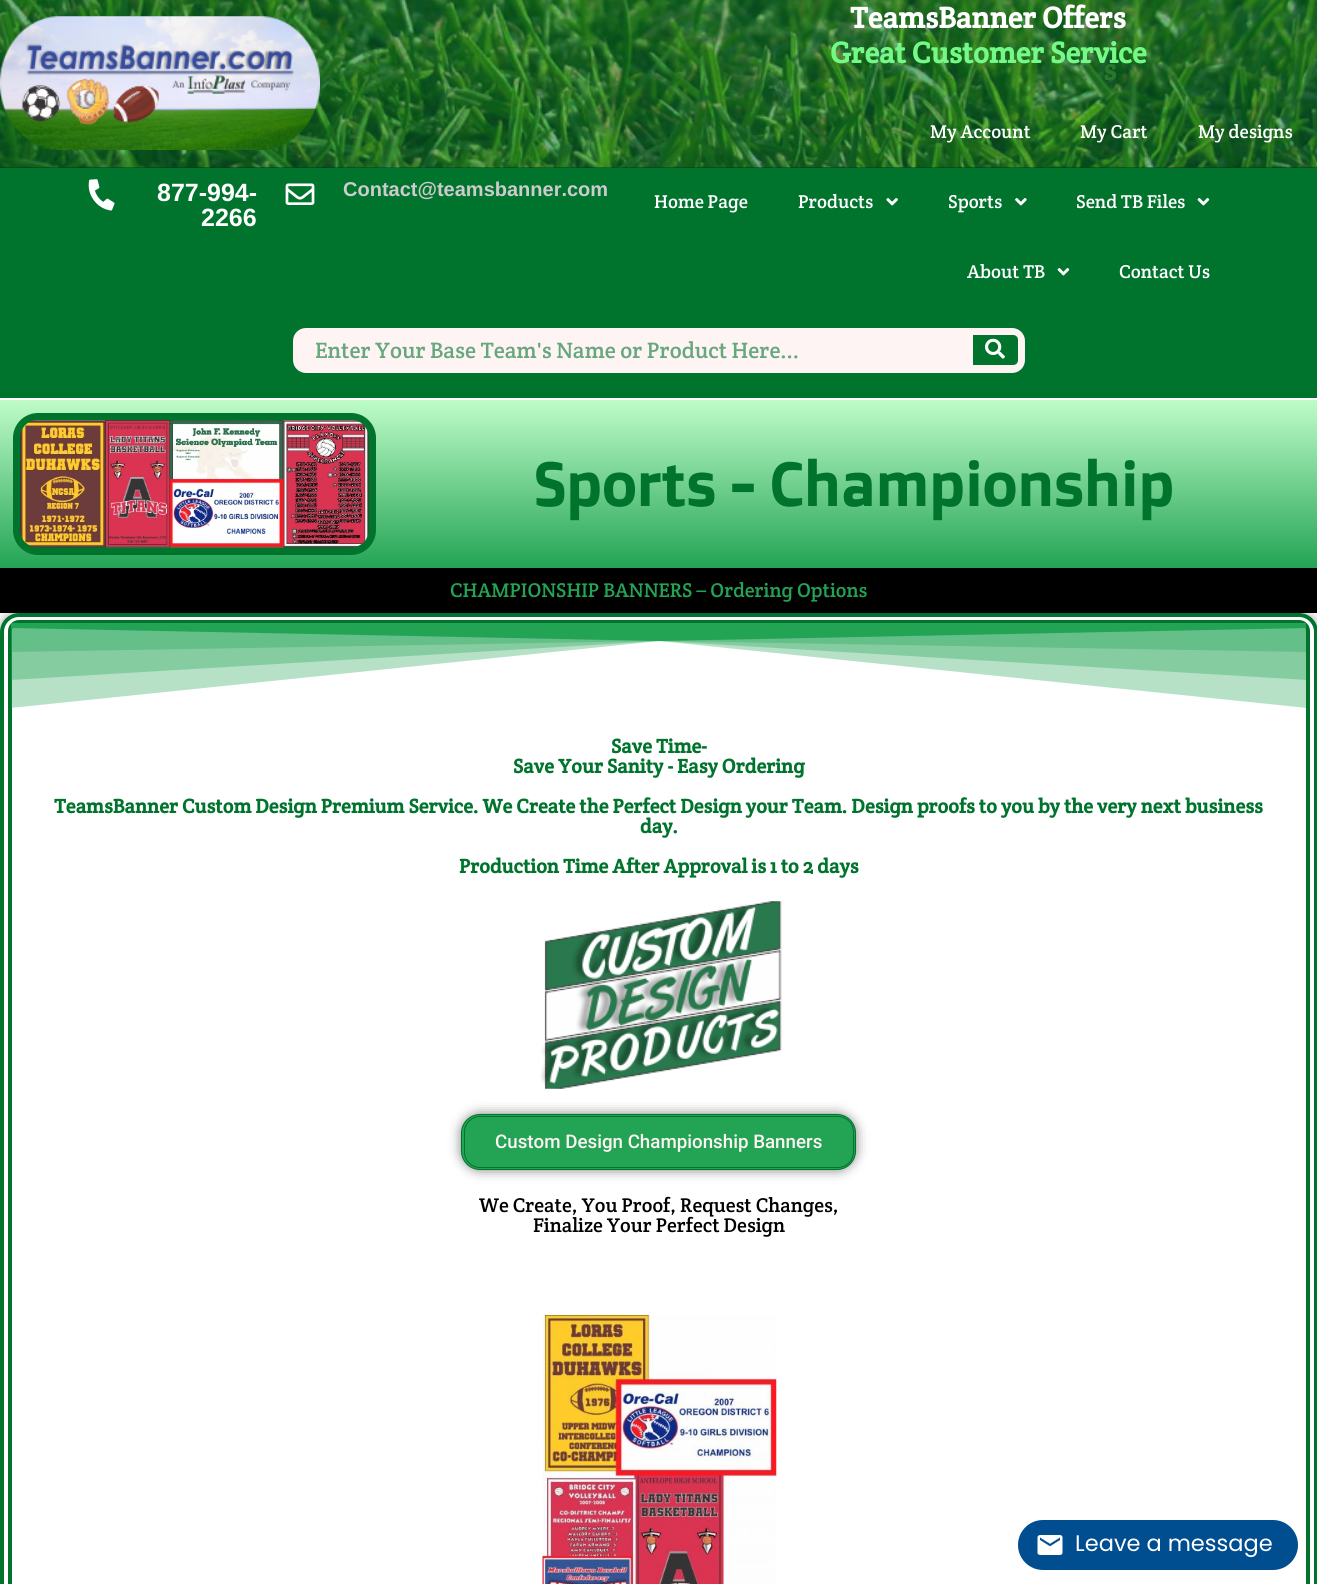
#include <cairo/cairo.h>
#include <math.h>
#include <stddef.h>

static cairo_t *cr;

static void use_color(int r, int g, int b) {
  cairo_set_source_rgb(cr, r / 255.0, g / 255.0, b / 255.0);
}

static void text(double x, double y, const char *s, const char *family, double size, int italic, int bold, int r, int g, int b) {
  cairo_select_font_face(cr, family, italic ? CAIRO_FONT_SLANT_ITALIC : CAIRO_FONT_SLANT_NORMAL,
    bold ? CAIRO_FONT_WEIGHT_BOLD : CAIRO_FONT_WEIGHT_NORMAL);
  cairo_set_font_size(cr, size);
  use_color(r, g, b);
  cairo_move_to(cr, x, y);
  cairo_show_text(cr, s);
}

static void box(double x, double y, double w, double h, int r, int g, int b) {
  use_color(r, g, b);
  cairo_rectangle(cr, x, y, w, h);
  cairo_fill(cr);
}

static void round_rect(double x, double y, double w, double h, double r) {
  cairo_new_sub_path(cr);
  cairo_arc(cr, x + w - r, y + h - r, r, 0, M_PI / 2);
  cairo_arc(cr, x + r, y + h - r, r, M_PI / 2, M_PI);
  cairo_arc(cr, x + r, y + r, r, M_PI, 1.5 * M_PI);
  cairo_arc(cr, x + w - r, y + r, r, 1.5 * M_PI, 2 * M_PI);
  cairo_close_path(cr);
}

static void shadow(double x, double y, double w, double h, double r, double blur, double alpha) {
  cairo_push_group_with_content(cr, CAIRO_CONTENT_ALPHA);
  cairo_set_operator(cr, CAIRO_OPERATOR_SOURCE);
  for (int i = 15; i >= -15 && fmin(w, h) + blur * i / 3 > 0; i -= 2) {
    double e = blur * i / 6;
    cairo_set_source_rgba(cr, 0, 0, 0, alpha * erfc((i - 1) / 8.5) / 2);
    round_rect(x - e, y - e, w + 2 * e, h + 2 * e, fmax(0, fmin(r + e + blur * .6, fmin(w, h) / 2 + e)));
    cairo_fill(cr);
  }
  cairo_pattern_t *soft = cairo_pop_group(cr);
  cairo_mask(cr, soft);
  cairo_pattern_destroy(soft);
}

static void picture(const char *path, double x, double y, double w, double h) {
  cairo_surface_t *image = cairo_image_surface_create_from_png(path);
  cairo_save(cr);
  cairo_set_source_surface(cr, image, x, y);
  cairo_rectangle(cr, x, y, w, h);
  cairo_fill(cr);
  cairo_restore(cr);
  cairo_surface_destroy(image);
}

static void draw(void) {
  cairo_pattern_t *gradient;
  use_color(255, 255, 255);
  cairo_paint(cr);
  box(0, 167, 1317, 1, 0, 58, 23);
  picture("img_01.png", 0, 0, 1317, 168);
  picture("img_02.png", 0, 16, 320, 134);
  box(0, 168, 1317, 230, 0, 115, 45);
  picture("img_03.png", 88, 179, 27, 32);
  picture("img_04.png", 285, 183, 30, 22);
  picture("img_05.png", 886, 198, 12, 8);
  picture("img_06.png", 1015, 198, 12, 8);
  picture("img_07.png", 1197, 198, 13, 8);
  picture("img_07.png", 1057, 268, 13, 8);
  use_color(255, 244, 244);
  round_rect(293, 328, 732, 45, 13);
  cairo_fill(cr);
  use_color(0, 115, 45);
  cairo_new_path(cr);
  cairo_move_to(cr, 973, 335);
  cairo_line_to(cr, 1013, 335);
  cairo_curve_to(cr, 1016, 335, 1018, 337, 1018, 340);
  cairo_line_to(cr, 1018, 360);
  cairo_curve_to(cr, 1018, 363, 1016, 365, 1013, 365);
  cairo_line_to(cr, 973, 365);
  cairo_close_path(cr);
  cairo_fill(cr);
  picture("img_08.png", 985, 338, 20, 21);
  gradient = cairo_pattern_create_linear(659, 400, 659, 568);
  cairo_pattern_add_color_stop_rgba(gradient, 0, 0.749, 0.988, 0.784, 1);
  cairo_pattern_add_color_stop_rgba(gradient, 1, 0.137, 0.643, 0.333, 1);
  cairo_set_source(cr, gradient);
  cairo_pattern_destroy(gradient);
  cairo_rectangle(cr, 0, 400, 1317, 168);
  cairo_fill(cr);
  round_rect(17, 417, 355, 134, 21);
  use_color(0, 115, 45);
  cairo_set_line_width(cr, 8);
  cairo_stroke(cr);
  picture("img_09.png", 20, 420, 349, 128);
  box(0, 568, 1317, 45, 0, 0, 0);
  cairo_save(cr);
  cairo_set_fill_rule(cr, CAIRO_FILL_RULE_EVEN_ODD);
  cairo_new_path(cr);
  cairo_move_to(cr, 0, 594);
  cairo_line_to(cr, 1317, 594);
  cairo_line_to(cr, 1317, 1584);
  cairo_line_to(cr, 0, 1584);
  cairo_close_path(cr);
  cairo_move_to(cr, 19, 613);
  cairo_line_to(cr, 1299, 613);
  cairo_curve_to(cr, 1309.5, 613, 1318, 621.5, 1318, 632);
  cairo_line_to(cr, 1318, 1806);
  cairo_curve_to(cr, 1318, 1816.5, 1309.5, 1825, 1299, 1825);
  cairo_line_to(cr, 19, 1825);
  cairo_curve_to(cr, 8.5, 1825, 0, 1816.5, 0, 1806);
  cairo_line_to(cr, 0, 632);
  cairo_curve_to(cr, 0, 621.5, 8.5, 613, 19, 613);
  cairo_close_path(cr);
  cairo_clip(cr);
  use_color(0, 0, 0);
  shadow(0, 613, 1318, 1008, 19, 6, 0.43);
  cairo_restore(cr);
  round_rect(2, 615, 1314, 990, 17);
  use_color(0, 115, 45);
  cairo_set_line_width(cr, 4);
  cairo_stroke(cr);
  round_rect(10, 622, 1298, 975, 9);
  cairo_stroke(cr);
  cairo_save(cr);
  cairo_rectangle(cr, 11, 623, 1295, 90);
  cairo_clip(cr);
  cairo_set_source_rgba(cr, 0.137, 0.643, 0.333, 0.33);
  cairo_new_path(cr);
  cairo_move_to(cr, 10, 622);
  cairo_line_to(cr, 10, 708);
  cairo_line_to(cr, 659, 641);
  cairo_line_to(cr, 1307, 708);
  cairo_line_to(cr, 1307, 622);
  cairo_close_path(cr);
  cairo_fill(cr);
  cairo_new_path(cr);
  cairo_move_to(cr, 10, 622);
  cairo_line_to(cr, 10, 680);
  cairo_line_to(cr, 659, 641);
  cairo_line_to(cr, 1307, 680);
  cairo_line_to(cr, 1307, 622);
  cairo_close_path(cr);
  cairo_fill(cr);
  cairo_new_path(cr);
  cairo_move_to(cr, 10, 622);
  cairo_line_to(cr, 10, 652);
  cairo_line_to(cr, 659, 641);
  cairo_line_to(cr, 1307, 652);
  cairo_line_to(cr, 1307, 622);
  cairo_close_path(cr);
  cairo_fill(cr);
  use_color(35, 164, 85);
  cairo_new_path(cr);
  cairo_move_to(cr, 10, 622);
  cairo_line_to(cr, 10, 628);
  cairo_line_to(cr, 659, 641);
  cairo_line_to(cr, 1307, 628);
  cairo_line_to(cr, 1307, 622);
  cairo_close_path(cr);
  cairo_fill(cr);
  cairo_restore(cr);
  picture("img_10.png", 540, 901, 242, 188);
  use_color(0, 0, 0);
  shadow(461, 1114, 395, 56, 19, 6, 0.5);
  use_color(35, 164, 85);
  round_rect(461.5, 1114.5, 394, 55, 18.5);
  cairo_fill_preserve(cr);
  use_color(0, 115, 45);
  cairo_set_line_width(cr, 1);
  cairo_stroke(cr);
  round_rect(464.5, 1116.5, 389, 51, 15.5);
  cairo_stroke(cr);
  picture("img_11.png", 542, 1315, 235, 269);
  use_color(0, 77, 144);
  round_rect(1018, 1520, 280, 50, 25);
  cairo_fill(cr);
  picture("img_12.png", 1037, 1535, 26, 20);
  text(850, 28, "TeamsBanner Offers", "Crete Round", 30, 0, 1, 255, 255, 255);
  text(830, 63, "Great Customer Service", "Crete Round", 30, 0, 1, 115, 249, 134);
  text(1103, 80, "s", "Crete Round", 30, 0, 1, 42, 118, 44);
  text(930, 138, "My Account", "Crete Round", 18.75, 0, 0, 255, 255, 255);
  text(1080, 138, "My Cart", "Crete Round", 18.75, 0, 0, 255, 255, 255);
  text(1198, 138, "My designs", "Crete Round", 18.75, 0, 0, 255, 255, 255);
  text(157, 201, "877-994-", "Liberation Sans", 25, 0, 1, 255, 255, 255);
  text(201, 226, "2266", "Liberation Sans", 25, 0, 1, 255, 255, 255);
  text(343, 196, "Contact@teamsbanner.com", "Liberation Sans", 20, 0, 1, 204, 204, 204);
  text(654, 208, "Home Page", "Crete Round", 18.75, 0, 0, 255, 255, 255);
  text(798, 208, "Products", "Crete Round", 18.75, 0, 0, 255, 255, 255);
  text(948, 208, "Sports", "Crete Round", 18.75, 0, 0, 255, 255, 255);
  text(1076, 208, "Send TB Files", "Crete Round", 18.75, 0, 0, 255, 255, 255);
  text(967, 278, "About TB", "Crete Round", 18.75, 0, 0, 255, 255, 255);
  text(1119, 278, "Contact Us", "Crete Round", 18.75, 0, 0, 255, 255, 255);
  text(315, 358, "Enter Your Base Team's Name or Product Here...", "Crete Round", 22.5, 0, 0, 102, 167, 125);
  text(533, 506, "Sports - Championship", "Doppio One", 60, 0, 1, 0, 115, 45);
  text(450, 597, "CHAMPIONSHIP BANNERS – Ordering Options", "Crete Round", 20, 0, 0, 35, 164, 85);
  text(611, 753, "Save Time-", "Crete Round", 20, 0, 1, 0, 115, 45);
  text(513, 773, "Save Your Sanity - Easy Ordering", "Crete Round", 20, 0, 1, 0, 115, 45);
  text(54, 813, "TeamsBanner Custom Design Premium Service. We Create the Perfect Design your Team. Design proofs to you by the very next business", "Crete Round", 20, 0, 1, 0, 115, 45);
  text(640, 833, "day.", "Crete Round", 20, 0, 1, 0, 115, 45);
  text(459, 873, "Production Time After Approval is 1 to 2 days", "Crete Round", 20, 0, 1, 0, 115, 45);
  text(495, 1148, "Custom Design Championship Banners", "Roboto Medium", 18.75, 0, 0, 255, 244, 244);
  text(479, 1212, "We Create, You Proof, Request Changes,", "Crete Round", 20, 0, 0, 0, 0, 0);
  text(533, 1232, "Finalize Your Perfect Design", "Crete Round", 20, 0, 0, 0, 0, 0);
  text(1075, 1551, "Leave a message", "Poppins", 22.5, 0, 0, 255, 255, 255);
}

int main(void) {
  cairo_surface_t *surface = cairo_image_surface_create(CAIRO_FORMAT_RGB24, 1317, 1584);
  cr = cairo_create(surface);
  cairo_font_options_t *options = cairo_font_options_create();
  cairo_font_options_set_hint_metrics(options, CAIRO_HINT_METRICS_OFF);
  cairo_font_options_set_hint_style(options, CAIRO_HINT_STYLE_NONE);
  cairo_set_font_options(cr, options);
  cairo_set_miter_limit(cr, 4);
  draw();
  cairo_surface_write_to_png(surface, "out.png");
  cairo_font_options_destroy(options);
  cairo_destroy(cr);
  cairo_surface_destroy(surface);
  return 0;
}
